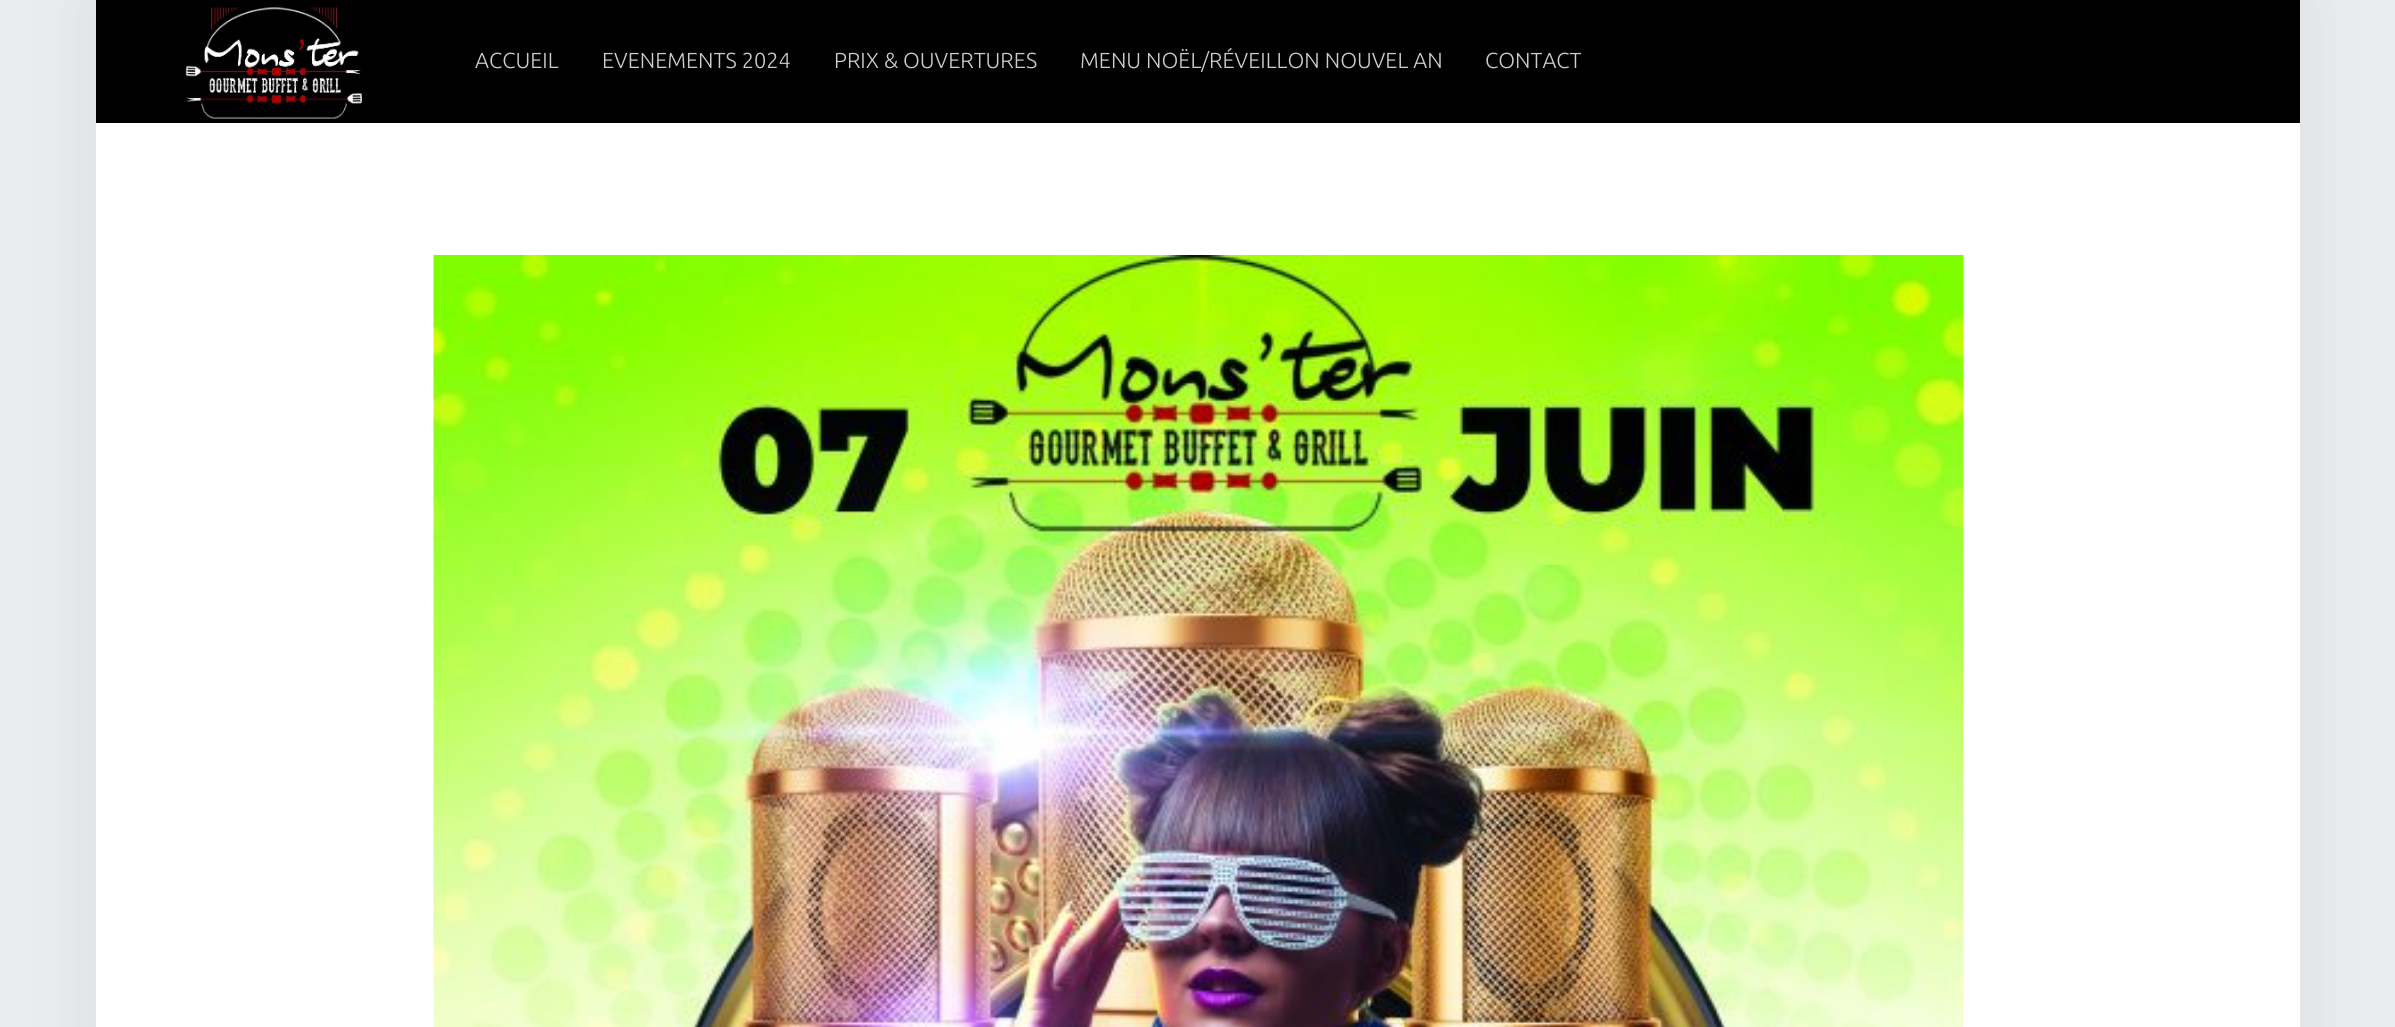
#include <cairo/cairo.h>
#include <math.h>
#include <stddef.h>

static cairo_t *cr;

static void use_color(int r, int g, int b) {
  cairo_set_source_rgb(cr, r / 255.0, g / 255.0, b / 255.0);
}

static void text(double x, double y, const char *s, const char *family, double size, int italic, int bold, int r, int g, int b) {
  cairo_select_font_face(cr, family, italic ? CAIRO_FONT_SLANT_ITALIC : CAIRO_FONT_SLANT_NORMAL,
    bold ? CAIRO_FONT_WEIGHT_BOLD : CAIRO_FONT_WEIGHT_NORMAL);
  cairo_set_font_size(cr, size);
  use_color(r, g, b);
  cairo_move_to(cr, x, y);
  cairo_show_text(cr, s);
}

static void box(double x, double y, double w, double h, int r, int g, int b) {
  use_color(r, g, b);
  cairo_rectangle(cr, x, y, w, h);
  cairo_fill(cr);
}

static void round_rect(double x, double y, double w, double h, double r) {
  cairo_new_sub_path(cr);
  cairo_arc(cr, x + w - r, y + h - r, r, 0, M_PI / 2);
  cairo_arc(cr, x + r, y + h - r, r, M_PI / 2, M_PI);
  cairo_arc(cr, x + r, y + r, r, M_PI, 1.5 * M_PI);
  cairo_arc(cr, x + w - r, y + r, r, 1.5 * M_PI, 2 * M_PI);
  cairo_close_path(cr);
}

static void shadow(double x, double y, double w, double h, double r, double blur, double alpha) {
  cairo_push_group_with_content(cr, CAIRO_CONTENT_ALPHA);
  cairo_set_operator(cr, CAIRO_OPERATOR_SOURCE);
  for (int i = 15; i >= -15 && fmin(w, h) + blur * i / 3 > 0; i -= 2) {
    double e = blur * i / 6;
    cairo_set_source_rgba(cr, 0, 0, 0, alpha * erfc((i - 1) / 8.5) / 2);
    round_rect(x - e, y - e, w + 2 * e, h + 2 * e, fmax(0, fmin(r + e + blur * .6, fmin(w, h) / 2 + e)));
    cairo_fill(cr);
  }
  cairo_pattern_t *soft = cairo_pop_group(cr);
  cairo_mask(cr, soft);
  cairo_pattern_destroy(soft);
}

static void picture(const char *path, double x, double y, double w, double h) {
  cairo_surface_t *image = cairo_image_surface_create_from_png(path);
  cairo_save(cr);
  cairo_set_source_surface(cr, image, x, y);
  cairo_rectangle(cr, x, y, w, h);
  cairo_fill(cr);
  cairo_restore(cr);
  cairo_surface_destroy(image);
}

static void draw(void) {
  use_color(234, 236, 238);
  cairo_paint(cr);
  use_color(0, 0, 0);
  shadow(96, 0, 2204, 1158, 0, 43.5, 0.07);
  box(96, 123, 2204, 904, 255, 255, 255);
  box(96, 0, 2204, 123, 0, 0, 0);
  picture("img_01.png", 185, 7, 177, 112);
  picture("img_02.png", 433, 255, 1531, 772);
  text(475, 68, "ACCUEIL", "Ubuntu Light", 21.75, 0, 0, 204, 204, 204);
  text(602, 68, "EVENEMENTS 2024", "Ubuntu Light", 21.75, 0, 0, 204, 204, 204);
  text(834, 68, "PRIX & OUVERTURES", "Ubuntu Light", 21.75, 0, 0, 204, 204, 204);
  text(1080, 68, "MENU NOËL/RÉVEILLON NOUVEL AN", "Ubuntu Light", 21.75, 0, 0, 204, 204, 204);
  text(1485, 68, "CONTACT", "Ubuntu Light", 21.75, 0, 0, 204, 204, 204);
}

int main(void) {
  cairo_surface_t *surface = cairo_image_surface_create(CAIRO_FORMAT_RGB24, 2395, 1027);
  cr = cairo_create(surface);
  cairo_font_options_t *options = cairo_font_options_create();
  cairo_font_options_set_hint_metrics(options, CAIRO_HINT_METRICS_OFF);
  cairo_font_options_set_hint_style(options, CAIRO_HINT_STYLE_NONE);
  cairo_set_font_options(cr, options);
  cairo_set_miter_limit(cr, 4);
  draw();
  cairo_surface_write_to_png(surface, "out.png");
  cairo_font_options_destroy(options);
  cairo_destroy(cr);
  cairo_surface_destroy(surface);
  return 0;
}
